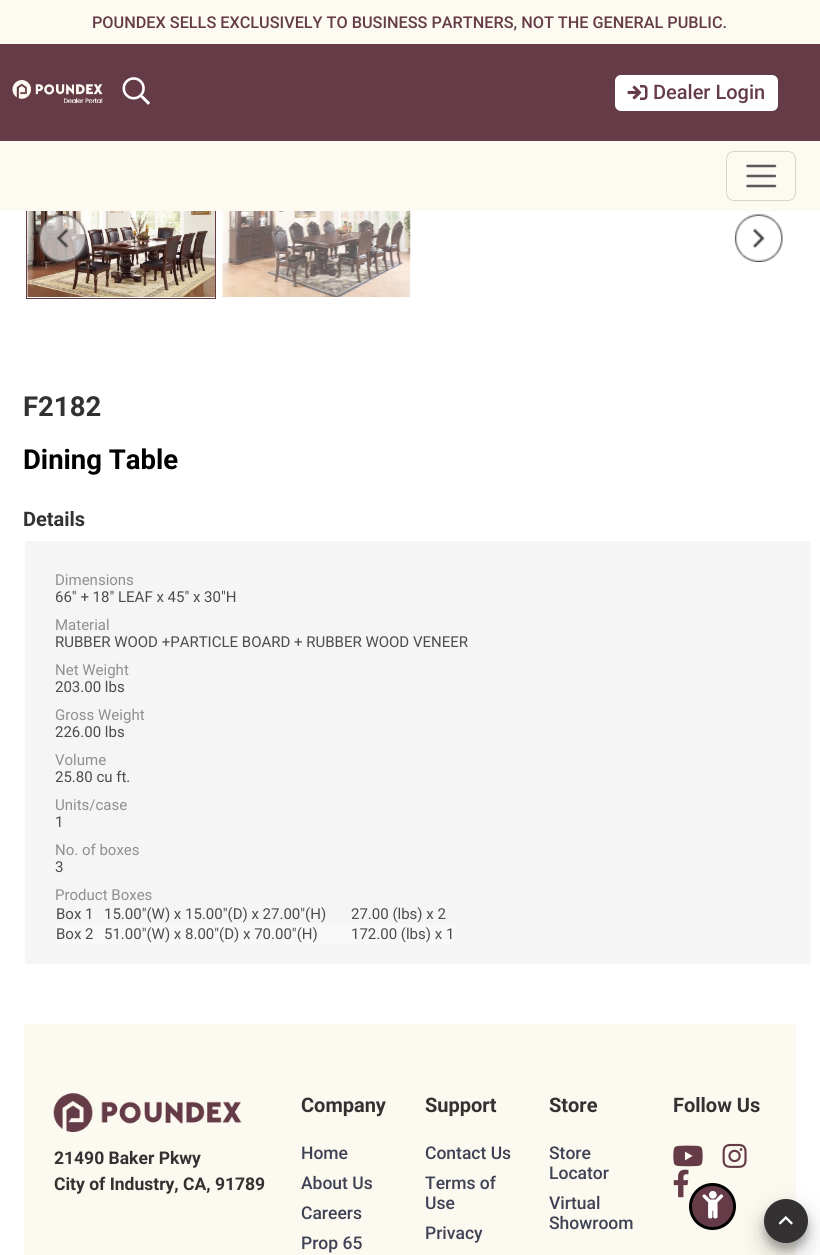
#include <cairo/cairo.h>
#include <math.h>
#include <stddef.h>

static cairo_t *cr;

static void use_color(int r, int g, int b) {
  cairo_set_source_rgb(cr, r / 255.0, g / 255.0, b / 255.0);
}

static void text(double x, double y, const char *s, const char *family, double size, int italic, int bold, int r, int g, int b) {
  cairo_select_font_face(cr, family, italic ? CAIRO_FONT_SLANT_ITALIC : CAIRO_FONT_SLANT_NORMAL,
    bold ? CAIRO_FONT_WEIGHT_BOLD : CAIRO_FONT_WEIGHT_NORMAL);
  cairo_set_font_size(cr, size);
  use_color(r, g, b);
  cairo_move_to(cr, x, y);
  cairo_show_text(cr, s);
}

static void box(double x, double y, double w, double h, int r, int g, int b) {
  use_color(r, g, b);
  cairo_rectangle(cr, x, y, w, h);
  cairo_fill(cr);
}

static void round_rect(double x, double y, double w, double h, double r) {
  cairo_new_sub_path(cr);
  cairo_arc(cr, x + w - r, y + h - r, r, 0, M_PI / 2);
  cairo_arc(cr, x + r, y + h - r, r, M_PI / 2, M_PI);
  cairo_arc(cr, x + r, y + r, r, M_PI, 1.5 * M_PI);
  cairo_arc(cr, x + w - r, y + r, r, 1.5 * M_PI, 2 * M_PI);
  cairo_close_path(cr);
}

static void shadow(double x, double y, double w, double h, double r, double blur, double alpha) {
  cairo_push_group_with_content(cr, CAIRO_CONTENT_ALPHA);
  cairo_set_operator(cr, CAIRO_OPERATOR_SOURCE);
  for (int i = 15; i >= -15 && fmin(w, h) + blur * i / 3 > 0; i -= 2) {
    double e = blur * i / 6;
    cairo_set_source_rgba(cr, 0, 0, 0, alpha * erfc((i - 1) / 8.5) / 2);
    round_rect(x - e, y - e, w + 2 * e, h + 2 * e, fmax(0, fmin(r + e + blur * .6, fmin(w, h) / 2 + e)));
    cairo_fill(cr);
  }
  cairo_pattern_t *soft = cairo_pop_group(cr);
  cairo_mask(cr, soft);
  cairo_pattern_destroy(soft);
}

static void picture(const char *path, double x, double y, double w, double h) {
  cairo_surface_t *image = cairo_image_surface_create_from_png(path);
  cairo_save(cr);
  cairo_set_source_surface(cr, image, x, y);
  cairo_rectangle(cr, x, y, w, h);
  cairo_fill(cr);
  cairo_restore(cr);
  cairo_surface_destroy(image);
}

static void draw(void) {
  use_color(255, 255, 255);
  cairo_paint(cr);
  box(0, 0, 820, 44, 252, 250, 241);
  box(0, 44, 820, 97, 101, 59, 71);
  picture("img_01.png", 12, 80, 91, 23);
  picture("img_02.png", 122, 77, 28, 28);
  use_color(255, 255, 255);
  round_rect(615, 75, 163, 36, 6);
  cairo_fill(cr);
  picture("img_03.png", 627, 85, 21, 15);
  picture("img_04.png", 27, 211, 188, 86);
  cairo_rectangle(cr, 26.5, 171.5, 189, 127);
  use_color(101, 59, 71);
  cairo_set_line_width(cr, 1);
  cairo_stroke(cr);
  box(0, 141, 820, 70, 252, 250, 241);
  round_rect(726.5, 151.5, 69, 49, 7.5);
  use_color(214, 213, 205);
  cairo_stroke(cr);
  cairo_new_path(cr);
  cairo_move_to(cr, 747.5, 166);
  cairo_line_to(cr, 775, 166);
  cairo_move_to(cr, 747.5, 176);
  cairo_line_to(cr, 775, 176);
  cairo_move_to(cr, 747.5, 186);
  cairo_line_to(cr, 775, 186);
  use_color(88, 90, 91);
  cairo_set_line_width(cr, 2.5);
  cairo_set_line_cap(cr, CAIRO_LINE_CAP_ROUND);
  cairo_stroke(cr);
  picture("img_05.png", 222, 211, 189, 86);
  picture("img_06.png", 38, 214, 49, 48);
  picture("img_07.png", 734, 214, 49, 48);
  box(25, 541, 786, 423, 245, 245, 245);
  box(55, 924, 400, 20, 248, 248, 248);
  box(24, 1024, 772, 231, 252, 249, 240);
  picture("img_08.png", 673, 1145, 30, 22);
  picture("img_09.png", 722, 1143, 25, 25);
  picture("img_10.png", 673, 1169, 16, 29);
  picture("img_11.png", 53, 1093, 189, 39);
  use_color(0, 0, 0);
  shadow(764, 1206, 44, 44, 22, 4, 0.23);
  shadow(764, 1211, 44, 44, 22, 12.5, 0.19);
  use_color(52, 49, 50);
  cairo_arc(cr, 786, 1221, 22, 0, 2 * M_PI);
  cairo_fill(cr);
  picture("img_12.png", 778, 1216, 15, 9);
  use_color(101, 59, 71);
  cairo_arc(cr, 712.5, 1206.5, 22, 0, 2 * M_PI);
  cairo_fill_preserve(cr);
  use_color(0, 0, 0);
  cairo_set_line_width(cr, 3);
  cairo_set_line_cap(cr, CAIRO_LINE_CAP_BUTT);
  cairo_stroke(cr);
  picture("img_13.png", 702, 1191, 22, 28);
  text(92, 28, "POUNDEX SELLS EXCLUSIVELY TO BUSINESS PARTNERS, NOT THE GENERAL PUBLIC.", "Roboto Medium", 16.25, 0, 0, 101, 59, 71);
  text(653, 99, "Dealer Login", "Roboto Medium", 20, 0, 0, 101, 59, 71);
  text(23, 416, "F2182", "Roboto", 27.5, 0, 1, 52, 49, 50);
  text(23, 469, "Dining Table", "Roboto", 27.5, 0, 1, 0, 0, 0);
  text(23, 526, "Details", "Roboto", 20, 0, 1, 52, 49, 50);
  text(55, 585, "Dimensions", "Roboto", 15, 0, 0, 143, 143, 143);
  text(55, 602, "66\" + 18\" LEAF x 45\" x 30\"H", "Roboto", 15, 0, 0, 74, 77, 78);
  text(55, 630, "Material", "Roboto", 15, 0, 0, 143, 143, 143);
  text(55, 647, "RUBBER WOOD +PARTICLE BOARD + RUBBER WOOD VENEER", "Roboto", 15, 0, 0, 74, 77, 78);
  text(55, 675, "Net Weight", "Roboto", 15, 0, 0, 143, 143, 143);
  text(55, 692, "203.00 lbs", "Roboto", 15, 0, 0, 74, 77, 78);
  text(55, 720, "Gross Weight", "Roboto", 15, 0, 0, 143, 143, 143);
  text(55, 737, "226.00 lbs", "Roboto", 15, 0, 0, 74, 77, 78);
  text(55, 765, "Volume", "Roboto", 15, 0, 0, 143, 143, 143);
  text(55, 782, "25.80 cu ft.", "Roboto", 15, 0, 0, 74, 77, 78);
  text(55, 810, "Units/case", "Roboto", 15, 0, 0, 143, 143, 143);
  text(55, 827, "1", "Roboto", 15, 0, 0, 74, 77, 78);
  text(55, 855, "No. of boxes", "Roboto", 15, 0, 0, 143, 143, 143);
  text(55, 872, "3", "Roboto", 15, 0, 0, 74, 77, 78);
  text(55, 900, "Product Boxes", "Roboto", 15, 0, 0, 143, 143, 143);
  text(56, 919, "Box 1", "Roboto", 15, 0, 0, 74, 77, 78);
  text(104, 919, "15.00\"(W) x 15.00\"(D) x 27.00\"(H)", "Roboto", 15, 0, 0, 74, 77, 78);
  text(351, 919, "27.00 (lbs) x 2", "Roboto", 15, 0, 0, 74, 77, 78);
  text(56, 939, "Box 2", "Roboto", 15, 0, 0, 74, 77, 78);
  text(104, 939, "51.00\"(W) x 8.00\"(D) x 70.00\"(H)", "Roboto", 15, 0, 0, 74, 77, 78);
  text(351, 939, "172.00 (lbs) x 1", "Roboto", 15, 0, 0, 74, 77, 78);
  text(301, 1112, "Company", "Roboto", 20, 0, 1, 52, 49, 50);
  text(301, 1159, "Home", "Roboto Medium", 17.5, 0, 0, 63, 66, 84);
  text(301, 1189, "About Us", "Roboto Medium", 17.5, 0, 0, 63, 66, 84);
  text(301, 1219, "Careers", "Roboto Medium", 17.5, 0, 0, 63, 66, 84);
  text(301, 1249, "Prop 65", "Roboto Medium", 17.5, 0, 0, 63, 66, 84);
  text(425, 1112, "Support", "Roboto", 20, 0, 1, 52, 49, 50);
  text(425, 1159, "Contact Us", "Roboto Medium", 17.5, 0, 0, 63, 66, 84);
  text(425, 1189, "Terms of", "Roboto Medium", 17.5, 0, 0, 63, 66, 84);
  text(425, 1209, "Use", "Roboto Medium", 17.5, 0, 0, 63, 66, 84);
  text(425, 1239, "Privacy", "Roboto Medium", 17.5, 0, 0, 63, 66, 84);
  text(549, 1112, "Store", "Roboto", 20, 0, 1, 52, 49, 50);
  text(549, 1159, "Store", "Roboto Medium", 17.5, 0, 0, 63, 66, 84);
  text(549, 1179, "Locator", "Roboto Medium", 17.5, 0, 0, 63, 66, 84);
  text(549, 1209, "Virtual", "Roboto Medium", 17.5, 0, 0, 63, 66, 84);
  text(549, 1229, "Showroom", "Roboto Medium", 17.5, 0, 0, 63, 66, 84);
  text(673, 1112, "Follow Us", "Roboto", 20, 0, 1, 52, 49, 50);
  text(54, 1164, "21490 Baker Pkwy", "Roboto", 17.5, 0, 1, 52, 49, 50);
  text(54, 1190, "City of Industry, CA, 91789", "Roboto", 17.5, 0, 1, 52, 49, 50);
}

int main(void) {
  cairo_surface_t *surface = cairo_image_surface_create(CAIRO_FORMAT_RGB24, 820, 1255);
  cr = cairo_create(surface);
  cairo_font_options_t *options = cairo_font_options_create();
  cairo_font_options_set_hint_metrics(options, CAIRO_HINT_METRICS_OFF);
  cairo_font_options_set_hint_style(options, CAIRO_HINT_STYLE_NONE);
  cairo_set_font_options(cr, options);
  cairo_set_miter_limit(cr, 4);
  draw();
  cairo_surface_write_to_png(surface, "out.png");
  cairo_font_options_destroy(options);
  cairo_destroy(cr);
  cairo_surface_destroy(surface);
  return 0;
}
